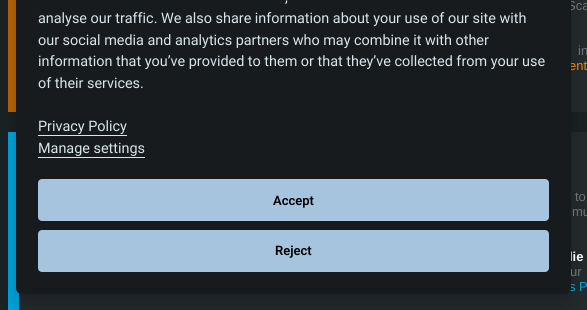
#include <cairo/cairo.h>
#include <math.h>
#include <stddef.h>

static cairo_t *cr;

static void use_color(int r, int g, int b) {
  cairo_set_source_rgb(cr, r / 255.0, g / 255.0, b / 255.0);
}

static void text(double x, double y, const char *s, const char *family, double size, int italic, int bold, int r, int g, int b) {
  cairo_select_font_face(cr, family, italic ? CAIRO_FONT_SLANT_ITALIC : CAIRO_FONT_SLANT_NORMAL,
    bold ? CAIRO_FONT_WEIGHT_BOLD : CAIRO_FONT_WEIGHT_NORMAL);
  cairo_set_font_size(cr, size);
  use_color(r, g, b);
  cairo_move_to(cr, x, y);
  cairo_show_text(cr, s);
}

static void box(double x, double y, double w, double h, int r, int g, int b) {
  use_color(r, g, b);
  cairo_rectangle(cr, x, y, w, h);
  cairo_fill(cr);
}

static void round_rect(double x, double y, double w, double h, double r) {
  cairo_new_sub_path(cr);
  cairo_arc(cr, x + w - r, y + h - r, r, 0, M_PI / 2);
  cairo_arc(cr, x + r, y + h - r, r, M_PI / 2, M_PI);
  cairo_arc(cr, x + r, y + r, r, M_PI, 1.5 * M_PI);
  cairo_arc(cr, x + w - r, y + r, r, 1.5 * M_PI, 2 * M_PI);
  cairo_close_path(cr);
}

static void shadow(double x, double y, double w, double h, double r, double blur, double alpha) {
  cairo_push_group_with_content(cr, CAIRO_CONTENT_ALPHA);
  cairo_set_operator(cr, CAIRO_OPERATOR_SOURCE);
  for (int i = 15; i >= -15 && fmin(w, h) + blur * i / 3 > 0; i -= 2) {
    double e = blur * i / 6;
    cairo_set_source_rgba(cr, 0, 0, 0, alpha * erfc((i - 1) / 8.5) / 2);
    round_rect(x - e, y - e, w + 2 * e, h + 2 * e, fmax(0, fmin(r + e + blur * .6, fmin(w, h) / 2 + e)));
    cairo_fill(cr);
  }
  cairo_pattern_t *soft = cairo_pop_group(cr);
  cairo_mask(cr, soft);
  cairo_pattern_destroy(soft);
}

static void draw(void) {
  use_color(27, 35, 37);
  cairo_paint(cr);
  box(571, 0, 16, 112, 37, 44, 46);
  box(8, 0, 8, 112, 193, 103, 8);
  box(19, 132, 568, 178, 37, 44, 46);
  box(8, 132, 11, 178, 0, 169, 228);
  use_color(2, 2, 3);
  shadow(16, -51, 555, 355, 6, 15, 0.28);
  text(567, 10, "Sca", "Liberation Sans", 13, 0, 0, 112, 115, 116);
  text(578, 55, "in", "Liberation Sans", 13, 0, 0, 112, 115, 116);
  text(569, 70, "ent", "Liberation Sans", 13, 0, 0, 254, 130, 0);
  text(575, 201, "to", "Liberation Sans", 13, 0, 0, 112, 115, 116);
  text(572, 216, "mu", "Liberation Sans", 13, 0, 0, 112, 115, 116);
  text(569, 261, "lie", "Liberation Sans", 13, 0, 1, 255, 255, 255);
  text(570, 276, "ur", "Liberation Sans", 13, 0, 0, 112, 115, 116);
  text(569, 291, "s P", "Liberation Sans", 13, 0, 0, 0, 169, 228);
  use_color(24, 27, 29);
  round_rect(16, -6, 555, 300, 6);
  cairo_fill(cr);
  use_color(166, 196, 221);
  round_rect(38, 230, 511, 42, 4);
  cairo_fill(cr);
  text(275, 255, "Reject", "Roboto SemiBold", 13, 0, 0, 0, 0, 0);
  use_color(166, 196, 221);
  round_rect(38, 179, 511, 42, 4);
  cairo_fill(cr);
  text(273, 205, "Accept", "Roboto SemiBold", 13, 0, 0, 0, 0, 0);
  text(38, 153, "Manage settings", "Roboto", 14.4, 0, 0, 216, 229, 234);
  box(38, 157, 107, 1, 216, 229, 234);
  text(38, 131, "Privacy Policy", "Roboto", 14.4, 0, 0, 216, 229, 234);
  box(38, 135, 89, 1, 216, 229, 234);
  text(38, 88, "of their services.", "Roboto", 14.4, 0, 0, 216, 229, 234);
  text(38, 66, "information that you’ve provided to them or that they’ve collected from your use", "Roboto", 14.4, 0, 0, 216, 229, 234);
  text(38, 45, "our social media and analytics partners who may combine it with other", "Roboto", 14.4, 0, 0, 216, 229, 234);
  text(38, 23, "analyse our traffic. We also share information about your use of our site with", "Roboto", 14.4, 0, 0, 216, 229, 234);
  text(285, 2, ",", "Roboto", 14.4, 0, 0, 216, 229, 234);
}

int main(void) {
  cairo_surface_t *surface = cairo_image_surface_create(CAIRO_FORMAT_RGB24, 587, 310);
  cr = cairo_create(surface);
  cairo_font_options_t *options = cairo_font_options_create();
  cairo_font_options_set_hint_metrics(options, CAIRO_HINT_METRICS_OFF);
  cairo_font_options_set_hint_style(options, CAIRO_HINT_STYLE_NONE);
  cairo_set_font_options(cr, options);
  cairo_set_miter_limit(cr, 4);
  draw();
  cairo_surface_write_to_png(surface, "out.png");
  cairo_font_options_destroy(options);
  cairo_destroy(cr);
  cairo_surface_destroy(surface);
  return 0;
}
